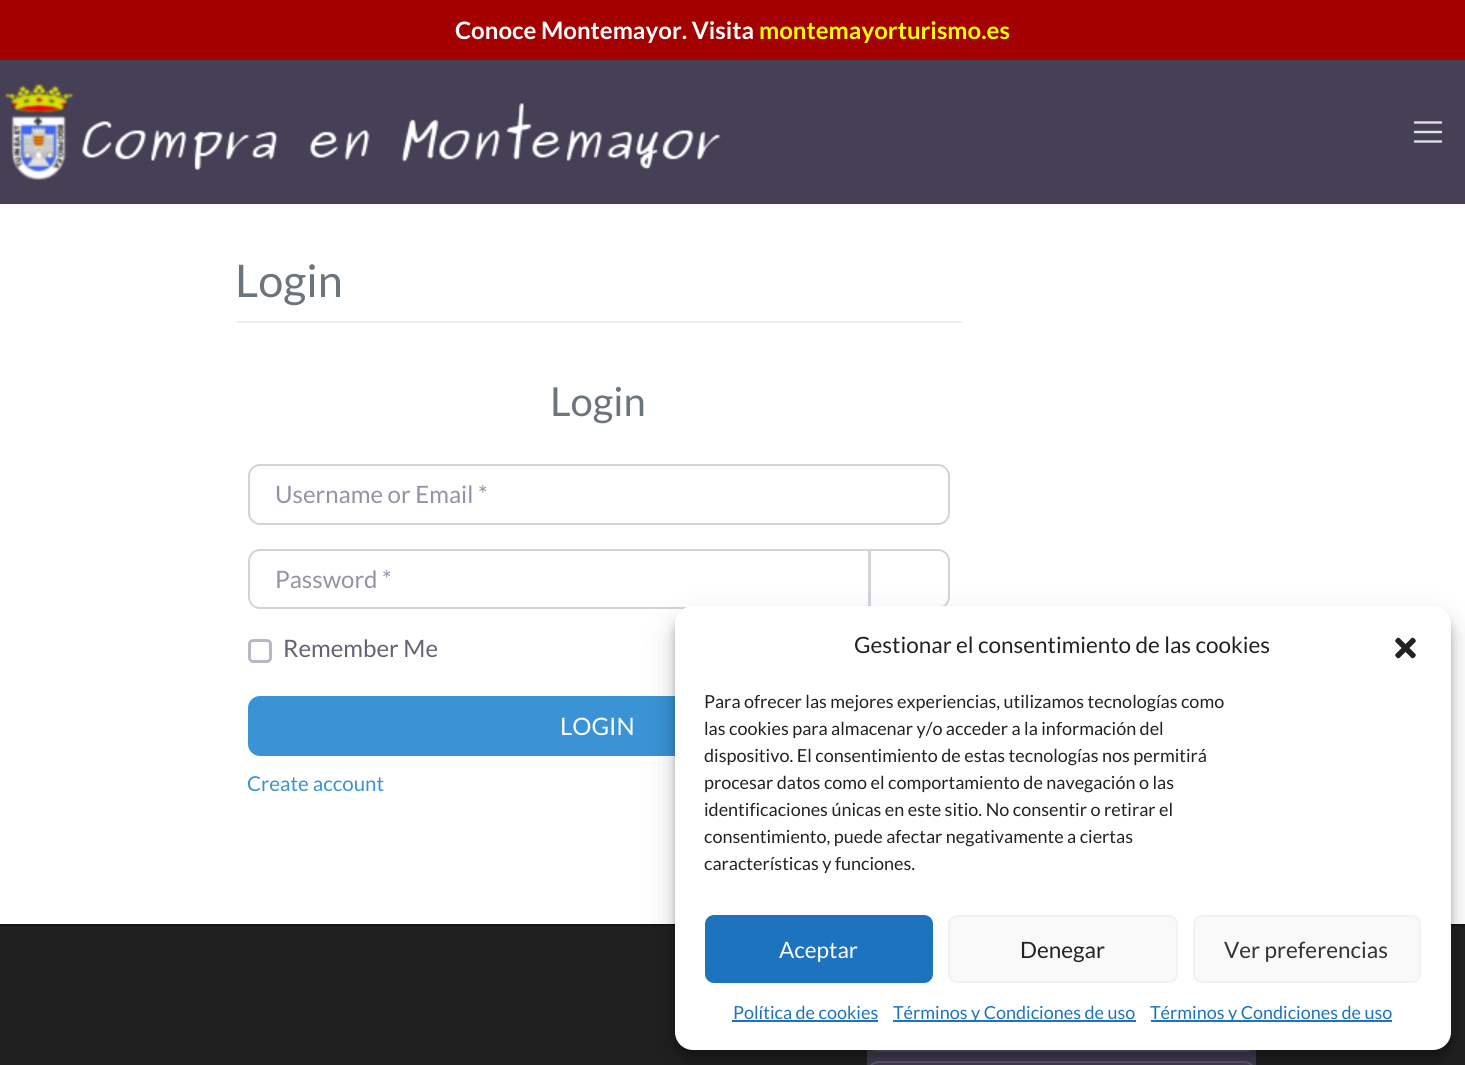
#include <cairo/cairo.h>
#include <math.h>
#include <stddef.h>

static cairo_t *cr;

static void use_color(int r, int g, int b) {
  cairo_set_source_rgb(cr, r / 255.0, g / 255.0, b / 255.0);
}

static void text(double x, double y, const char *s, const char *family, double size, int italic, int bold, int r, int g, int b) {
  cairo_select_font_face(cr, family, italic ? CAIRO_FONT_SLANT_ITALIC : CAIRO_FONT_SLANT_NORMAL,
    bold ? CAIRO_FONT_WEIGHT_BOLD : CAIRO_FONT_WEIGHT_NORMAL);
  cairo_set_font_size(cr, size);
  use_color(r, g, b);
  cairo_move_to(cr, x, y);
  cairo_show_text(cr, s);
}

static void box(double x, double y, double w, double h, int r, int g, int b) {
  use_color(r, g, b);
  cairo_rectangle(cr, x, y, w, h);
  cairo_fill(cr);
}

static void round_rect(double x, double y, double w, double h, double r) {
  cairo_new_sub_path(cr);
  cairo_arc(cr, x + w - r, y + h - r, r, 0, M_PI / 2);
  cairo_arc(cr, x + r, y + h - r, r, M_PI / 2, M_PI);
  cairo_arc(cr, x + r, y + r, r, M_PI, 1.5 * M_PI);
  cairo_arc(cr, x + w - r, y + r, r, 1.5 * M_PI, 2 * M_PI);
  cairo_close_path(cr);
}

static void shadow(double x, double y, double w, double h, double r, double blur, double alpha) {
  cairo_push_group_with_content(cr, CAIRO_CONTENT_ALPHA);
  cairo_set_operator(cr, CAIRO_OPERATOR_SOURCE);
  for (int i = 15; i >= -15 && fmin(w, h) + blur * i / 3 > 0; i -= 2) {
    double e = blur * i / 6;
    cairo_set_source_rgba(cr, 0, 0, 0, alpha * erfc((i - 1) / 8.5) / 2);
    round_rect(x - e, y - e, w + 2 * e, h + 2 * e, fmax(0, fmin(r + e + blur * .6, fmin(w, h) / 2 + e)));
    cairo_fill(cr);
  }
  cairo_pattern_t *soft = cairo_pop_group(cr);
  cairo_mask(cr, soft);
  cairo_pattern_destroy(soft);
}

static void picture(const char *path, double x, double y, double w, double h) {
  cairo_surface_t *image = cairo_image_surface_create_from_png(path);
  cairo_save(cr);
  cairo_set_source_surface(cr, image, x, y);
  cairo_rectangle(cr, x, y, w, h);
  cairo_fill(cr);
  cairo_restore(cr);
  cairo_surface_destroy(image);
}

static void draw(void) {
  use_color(255, 255, 255);
  cairo_paint(cr);
  box(0, 0, 1465, 60, 164, 0, 0);
  box(0, 60, 1465, 144, 69, 64, 86);
  picture("img_01.png", 4, 84, 717, 96);
  cairo_new_path(cr);
  cairo_move_to(cr, 1415, 122.5);
  cairo_line_to(cr, 1441, 122.5);
  cairo_move_to(cr, 1415, 132);
  cairo_line_to(cr, 1441, 132);
  cairo_move_to(cr, 1415, 141.5);
  cairo_line_to(cr, 1441, 141.5);
  use_color(227, 226, 230);
  cairo_set_line_width(cr, 2.4);
  cairo_set_line_cap(cr, CAIRO_LINE_CAP_ROUND);
  cairo_stroke(cr);
  box(236, 321, 726, 2, 239, 236, 243);
  round_rect(249, 465, 700, 59, 11);
  use_color(213, 210, 220);
  cairo_set_line_width(cr, 2);
  cairo_set_line_cap(cr, CAIRO_LINE_CAP_BUTT);
  cairo_stroke(cr);
  cairo_new_path(cr);
  cairo_move_to(cr, 870, 550);
  cairo_line_to(cr, 938, 550);
  cairo_curve_to(cr, 944, 550, 949, 555, 949, 561);
  cairo_line_to(cr, 949, 597);
  cairo_curve_to(cr, 949, 603, 944, 608, 938, 608);
  cairo_line_to(cr, 870, 608);
  cairo_close_path(cr);
  cairo_stroke(cr);
  cairo_new_path(cr);
  cairo_move_to(cr, 260, 550);
  cairo_line_to(cr, 869, 550);
  cairo_line_to(cr, 869, 608);
  cairo_line_to(cr, 260, 608);
  cairo_curve_to(cr, 254, 608, 249, 603, 249, 597);
  cairo_line_to(cr, 249, 561);
  cairo_curve_to(cr, 249, 555, 254, 550, 260, 550);
  cairo_close_path(cr);
  cairo_stroke(cr);
  round_rect(249.5, 640.5, 21, 21, 3.5);
  use_color(187, 183, 197);
  cairo_set_line_width(cr, 3);
  cairo_stroke(cr);
  use_color(57, 147, 213);
  round_rect(249, 697, 700, 58, 11);
  cairo_fill_preserve(cr);
  cairo_set_line_width(cr, 2);
  cairo_stroke(cr);
  box(0, 926, 1465, 139, 32, 32, 32);
  box(0, 924, 1465, 2, 21, 21, 21);
  box(867, 1050, 389, 15, 69, 64, 86);
  round_rect(868, 975, 387, 76, 11);
  use_color(97, 93, 111);
  cairo_stroke(cr);
  round_rect(868, 1062, 387, 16, 11);
  cairo_stroke(cr);
  use_color(0, 0, 0);
  shadow(675, 615, 776, 444, 18, 4.5, 0.23);
  shadow(675, 621, 776, 444, 18, 15, 0.19);
  use_color(255, 255, 255);
  round_rect(675, 606, 776, 444, 18);
  cairo_fill(cr);
  picture("img_02.png", 1395, 637, 21, 22);
  use_color(30, 115, 190);
  round_rect(706, 916, 226, 66, 8);
  cairo_fill_preserve(cr);
  cairo_stroke(cr);
  use_color(249, 249, 249);
  round_rect(949, 916, 228, 66, 8);
  cairo_fill_preserve(cr);
  use_color(242, 242, 242);
  cairo_stroke(cr);
  use_color(249, 249, 249);
  round_rect(1194, 916, 226, 66, 8);
  cairo_fill_preserve(cr);
  use_color(242, 242, 242);
  cairo_stroke(cr);
  box(732, 1020, 146, 2, 30, 115, 190);
  box(893, 1020, 243, 2, 30, 115, 190);
  box(1151, 1020, 241, 2, 30, 115, 190);
  text(455, 39, "Conoce Montemayor. Visita", "Lato", 24, 0, 1, 255, 255, 255);
  text(759, 39, "montemayorturismo.es", "Lato", 24, 0, 1, 255, 255, 0);
  text(235, 297, "Login", "Lato", 45, 0, 0, 108, 117, 125);
  text(550, 416, "Login", "Lato", 40, 0, 0, 108, 117, 125);
  text(275, 503, "Username or Email *", "Lato", 24, 0, 0, 150, 145, 164);
  text(275, 588, "Password *", "Lato", 24, 0, 0, 150, 145, 164);
  text(283, 657, "Remember Me", "Lato", 24, 0, 0, 102, 98, 118);
  text(560, 735, "LOGIN", "Lato", 24, 0, 0, 255, 255, 255);
  text(247, 791, "Create account", "Lato", 20.5, 0, 0, 57, 147, 213);
  text(854, 653, "Gestionar el consentimiento de las cookies", "Lato", 22.5, 0, 0, 34, 34, 34);
  text(704, 708, "Para ofrecer las mejores experiencias, utilizamos tecnologías como", "Lato", 18, 0, 0, 34, 34, 34);
  text(704, 735, "las cookies para almacenar y/o acceder a la información del", "Lato", 18, 0, 0, 34, 34, 34);
  text(704, 762, "dispositivo. El consentimiento de estas tecnologías nos permitirá", "Lato", 18, 0, 0, 34, 34, 34);
  text(704, 789, "procesar datos como el comportamiento de navegación o las", "Lato", 18, 0, 0, 34, 34, 34);
  text(704, 816, "identificaciones únicas en este sitio. No consentir o retirar el", "Lato", 18, 0, 0, 34, 34, 34);
  text(704, 843, "consentimiento, puede afectar negativamente a ciertas", "Lato", 18, 0, 0, 34, 34, 34);
  text(704, 870, "características y funciones.", "Lato", 18, 0, 0, 34, 34, 34);
  text(779, 958, "Aceptar", "Lato", 22.5, 0, 0, 255, 255, 255);
  text(1020, 958, "Denegar", "Lato", 22.5, 0, 0, 34, 34, 34);
  text(1224, 958, "Ver preferencias", "Lato", 22.5, 0, 0, 51, 51, 51);
  text(733, 1019, "Política de cookies", "Lato", 18, 0, 0, 30, 115, 190);
  text(893, 1019, "Términos y Condiciones de uso", "Lato", 18, 0, 0, 30, 115, 190);
  text(1150, 1019, "Términos y Condiciones de uso", "Lato", 18, 0, 0, 30, 115, 190);
}

int main(void) {
  cairo_surface_t *surface = cairo_image_surface_create(CAIRO_FORMAT_RGB24, 1465, 1065);
  cr = cairo_create(surface);
  cairo_font_options_t *options = cairo_font_options_create();
  cairo_font_options_set_hint_metrics(options, CAIRO_HINT_METRICS_OFF);
  cairo_font_options_set_hint_style(options, CAIRO_HINT_STYLE_NONE);
  cairo_set_font_options(cr, options);
  cairo_set_miter_limit(cr, 4);
  draw();
  cairo_surface_write_to_png(surface, "out.png");
  cairo_font_options_destroy(options);
  cairo_destroy(cr);
  cairo_surface_destroy(surface);
  return 0;
}
